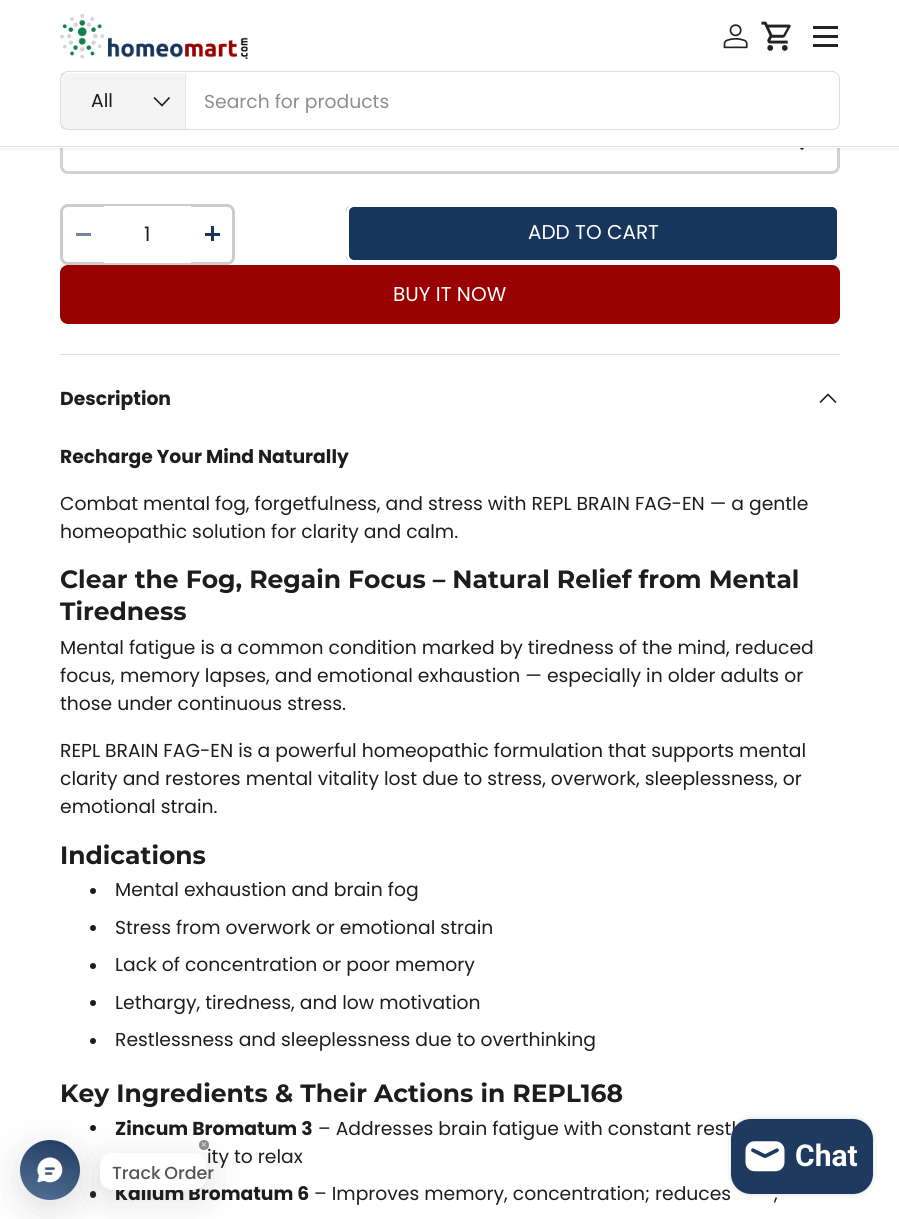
#include <cairo/cairo.h>
#include <math.h>
#include <stddef.h>

static cairo_t *cr;

static void use_color(int r, int g, int b) {
  cairo_set_source_rgb(cr, r / 255.0, g / 255.0, b / 255.0);
}

static void text(double x, double y, const char *s, const char *family, double size, int italic, int bold, int r, int g, int b) {
  cairo_select_font_face(cr, family, italic ? CAIRO_FONT_SLANT_ITALIC : CAIRO_FONT_SLANT_NORMAL,
    bold ? CAIRO_FONT_WEIGHT_BOLD : CAIRO_FONT_WEIGHT_NORMAL);
  cairo_set_font_size(cr, size);
  use_color(r, g, b);
  cairo_move_to(cr, x, y);
  cairo_show_text(cr, s);
}

static void spaced_text(double x, double y, const char *s, double letter, double word) {
  cairo_move_to(cr, x, y);
  while (*s) {
    char ch[5] = {0};
    int n = 0;
    do ch[n++] = *s++; while ((*s & 0xC0) == 0x80);
    cairo_show_text(cr, ch);
    cairo_rel_move_to(cr, letter + word * (*ch == ' '), 0);
  }
}

static void box(double x, double y, double w, double h, int r, int g, int b) {
  use_color(r, g, b);
  cairo_rectangle(cr, x, y, w, h);
  cairo_fill(cr);
}

static void round_rect(double x, double y, double w, double h, double r) {
  cairo_new_sub_path(cr);
  cairo_arc(cr, x + w - r, y + h - r, r, 0, M_PI / 2);
  cairo_arc(cr, x + r, y + h - r, r, M_PI / 2, M_PI);
  cairo_arc(cr, x + r, y + r, r, M_PI, 1.5 * M_PI);
  cairo_arc(cr, x + w - r, y + r, r, 1.5 * M_PI, 2 * M_PI);
  cairo_close_path(cr);
}

static void shadow(double x, double y, double w, double h, double r, double blur, double alpha) {
  cairo_push_group_with_content(cr, CAIRO_CONTENT_ALPHA);
  cairo_set_operator(cr, CAIRO_OPERATOR_SOURCE);
  for (int i = 15; i >= -15 && fmin(w, h) + blur * i / 3 > 0; i -= 2) {
    double e = blur * i / 6;
    cairo_set_source_rgba(cr, 0, 0, 0, alpha * erfc((i - 1) / 8.5) / 2);
    round_rect(x - e, y - e, w + 2 * e, h + 2 * e, fmax(0, fmin(r + e + blur * .6, fmin(w, h) / 2 + e)));
    cairo_fill(cr);
  }
  cairo_pattern_t *soft = cairo_pop_group(cr);
  cairo_mask(cr, soft);
  cairo_pattern_destroy(soft);
}

static void picture(const char *path, double x, double y, double w, double h) {
  cairo_surface_t *image = cairo_image_surface_create_from_png(path);
  cairo_save(cr);
  cairo_set_source_surface(cr, image, x, y);
  cairo_rectangle(cr, x, y, w, h);
  cairo_fill(cr);
  cairo_restore(cr);
  cairo_surface_destroy(image);
}

static void draw(void) {
  cairo_pattern_t *gradient;
  use_color(255, 255, 255);
  cairo_paint(cr);
  round_rect(61.5, 117.5, 777, 55, 6.5);
  use_color(210, 210, 210);
  cairo_set_line_width(cr, 3);
  cairo_stroke(cr);
  cairo_new_path(cr);
  cairo_move_to(cr, 809.5, 141.5);
  cairo_line_to(cr, 802, 149);
  cairo_line_to(cr, 794, 141.5);
  use_color(28, 29, 29);
  cairo_set_line_width(cr, 1.6);
  cairo_stroke(cr);
  use_color(0, 0, 0);
  shadow(-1, -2, 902, 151, 0, 2, 0.08);
  box(0, 0, 899, 148, 255, 255, 255);
  picture("img_01.png", 60, 13, 188, 46);
  picture("img_02.png", 723, 24, 25, 25);
  picture("img_03.png", 761, 21, 30, 30);
  box(813, 26, 25, 3, 34, 34, 34);
  box(813, 44, 25, 3, 34, 34, 34);
  box(813, 35, 25, 3, 34, 34, 34);
  round_rect(60.5, 71.5, 779, 58, 7.5);
  use_color(221, 221, 221);
  cairo_set_line_width(cr, 1);
  cairo_stroke(cr);
  use_color(255, 255, 255);
  round_rect(61, 73, 778, 56, 8);
  cairo_fill(cr);
  cairo_set_source_rgba(cr, 0.11, 0.114, 0.114, 0.05);
  cairo_rectangle(cr, 61, 73, 124, 56);
  cairo_fill(cr);
  box(185, 73, 1, 56, 233, 233, 233);
  cairo_new_path(cr);
  cairo_move_to(cr, 169.5, 97.5);
  cairo_line_to(cr, 162, 105.5);
  cairo_line_to(cr, 154, 97.5);
  use_color(28, 29, 29);
  cairo_set_line_width(cr, 1.6);
  cairo_stroke(cr);
  box(0, 146, 899, 1, 222, 222, 222);
  round_rect(61.5, 205.5, 172, 58, 6.5);
  use_color(204, 204, 204);
  cairo_set_line_width(cr, 3);
  cairo_stroke(cr);
  box(76, 233, 15, 3, 116, 134, 158);
  box(104, 262, 87, 1, 255, 255, 255);
  box(104, 206, 87, 1, 255, 255, 255);
  box(205, 233, 15, 3, 23, 54, 93);
  box(211, 226, 3, 15, 23, 54, 93);
  cairo_save(cr);
  round_rect(346, 204, 494, 59, 8);
  cairo_clip(cr);
  gradient = cairo_pattern_create_linear(-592, 59, 801, 407);
  cairo_pattern_add_color_stop_rgba(gradient, 0.6, 1, 1, 1, 0.07);
  cairo_pattern_add_color_stop_rgba(gradient, 0.6, 0.09, 0.212, 0.365, 1);
  cairo_pattern_add_color_stop_rgba(gradient, 1, 0.09, 0.212, 0.365, 1);
  cairo_set_source(cr, gradient);
  cairo_pattern_destroy(gradient);
  cairo_rectangle(cr, 346, 206, 492, 54);
  cairo_fill(cr);
  cairo_restore(cr);
  round_rect(347.5, 205.5, 491, 56, 6.5);
  use_color(255, 255, 255);
  cairo_stroke(cr);
  gradient = cairo_pattern_create_linear(-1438, 18, 778, 571);
  cairo_pattern_add_color_stop_rgba(gradient, 0.6, 0.706, 0.161, 0.161, 1);
  cairo_pattern_add_color_stop_rgba(gradient, 0.6, 0.6, 0, 0, 1);
  cairo_pattern_add_color_stop_rgba(gradient, 1, 0.6, 0, 0, 1);
  cairo_set_source(cr, gradient);
  cairo_pattern_destroy(gradient);
  round_rect(60, 265, 780, 59, 8);
  cairo_fill(cr);
  box(60, 354, 780, 1, 221, 221, 221);
  cairo_new_path(cr);
  cairo_move_to(cr, 836, 402.5);
  cairo_line_to(cr, 828, 394.5);
  cairo_line_to(cr, 820, 402.5);
  use_color(28, 29, 29);
  cairo_set_line_width(cr, 1.6);
  cairo_stroke(cr);
  cairo_arc(cr, 93, 891, 3, 0, 2 * M_PI);
  cairo_fill(cr);
  cairo_arc(cr, 93, 928, 3, 0, 2 * M_PI);
  cairo_fill(cr);
  cairo_arc(cr, 93, 966, 3, 0, 2 * M_PI);
  cairo_fill(cr);
  cairo_arc(cr, 93, 1003, 3, 0, 2 * M_PI);
  cairo_fill(cr);
  cairo_arc(cr, 93, 1041, 3, 0, 2 * M_PI);
  cairo_fill(cr);
  cairo_arc(cr, 93, 1128, 3, 0, 2 * M_PI);
  cairo_fill(cr);
  round_rect(90, 1191, 6, 7, 3);
  cairo_fill(cr);
  use_color(0, 0, 0);
  shadow(731, 1119, 142, 75, 20, 3, 0.15);
  use_color(100, 100, 111);
  shadow(20, 1149, 60, 60, 30, 18, 0.2);
  gradient = cairo_pattern_create_linear(62, 1134, 38, 1206);
  cairo_pattern_add_color_stop_rgba(gradient, 0, 0.118, 0.227, 0.373, 1);
  cairo_pattern_add_color_stop_rgba(gradient, 1, 0.333, 0.443, 0.588, 1);
  cairo_set_source(cr, gradient);
  cairo_pattern_destroy(gradient);
  cairo_arc(cr, 50, 1170, 30, 0, 2 * M_PI);
  cairo_fill(cr);
  picture("img_05.png", 37, 1157, 26, 26);
  use_color(100, 100, 111);
  shadow(100, 1161, 106, 38, 13, 18, 0.2);
  text(91, 107, "All", "Poppins", 18.75, 0, 0, 28, 29, 29);
  text(204, 108, "Search for products", "Poppins", 18.75, 0, 0, 142, 142, 142);
  text(144, 241, "1", "Poppins", 20, 0, 0, 28, 29, 29);
  text(528, 239, "ADD TO CART", "Poppins", 20, 0, 0, 255, 255, 255);
  text(393, 301, "BUY IT NOW", "Poppins", 20, 0, 0, 255, 255, 255);
  text(60, 405, "Description", "Poppins", 18.75, 0, 1, 28, 29, 29);
  text(60, 463, "Recharge Your Mind Naturally", "Poppins", 18.75, 0, 1, 28, 29, 29);
  text(60, 510, "Combat mental fog, forgetfulness, and stress with REPL BRAIN FAG-EN — a gentle", "Poppins", 18.75, 0, 0, 28, 29, 29);
  text(60, 538, "homeopathic solution for clarity and calm.", "Poppins", 18.75, 0, 0, 28, 29, 29);
  text(60, 588, "Clear the Fog, Regain Focus – Natural Relief from Mental", "Montserrat", 25, 0, 1, 28, 29, 29);
  text(60, 620, "Tiredness", "Montserrat", 25, 0, 1, 28, 29, 29);
  text(60, 654, "Mental fatigue is a common condition marked by tiredness of the mind, reduced", "Poppins", 18.75, 0, 0, 28, 29, 29);
  text(60, 682, "focus, memory lapses, and emotional exhaustion — especially in older adults or", "Poppins", 18.75, 0, 0, 28, 29, 29);
  text(60, 710, "those under continuous stress.", "Poppins", 18.75, 0, 0, 28, 29, 29);
  text(60, 757, "REPL BRAIN FAG-EN is a powerful homeopathic formulation that supports mental", "Poppins", 18.75, 0, 0, 28, 29, 29);
  text(60, 785, "clarity and restores mental vitality lost due to stress, overwork, sleeplessness, or", "Poppins", 18.75, 0, 0, 28, 29, 29);
  text(60, 813, "emotional strain.", "Poppins", 18.75, 0, 0, 28, 29, 29);
  text(60, 864, "Indications", "Montserrat", 25, 0, 1, 28, 29, 29);
  text(115, 896, "Mental exhaustion and brain fog", "Poppins", 18.75, 0, 0, 28, 29, 29);
  text(115, 934, "Stress from overwork or emotional strain", "Poppins", 18.75, 0, 0, 28, 29, 29);
  text(115, 971, "Lack of concentration or poor memory", "Poppins", 18.75, 0, 0, 28, 29, 29);
  text(115, 1009, "Lethargy, tiredness, and low motivation", "Poppins", 18.75, 0, 0, 28, 29, 29);
  text(115, 1046, "Restlessness and sleeplessness due to overthinking", "Poppins", 18.75, 0, 0, 28, 29, 29);
  text(60, 1102, "Key Ingredients & Their Actions in REPL168", "Montserrat", 25, 0, 1, 28, 29, 29);
  text(115, 1135, "Zincum Bromatum 3", "Poppins", 18.75, 0, 1, 28, 29, 29);
  text(318, 1135, "– Addresses brain fatigue with constant restl", "Poppins", 18.75, 0, 0, 28, 29, 29);
  text(207, 1163, "ity to relax", "Poppins", 18.75, 0, 0, 28, 29, 29);
  text(115, 1200, "Kalium Bromatum 6", "Poppins", 18.75, 0, 1, 28, 29, 29);
  text(314, 1200, "– Improves memory, concentration; reduces", "Poppins", 18.75, 0, 0, 28, 29, 29);
  text(774, 1200, ",", "Poppins", 18.75, 0, 0, 28, 29, 29);
  use_color(30, 58, 95);
  round_rect(731, 1119, 142, 75, 20);
  cairo_fill(cr);
  picture("img_04.png", 745, 1141, 40, 31);
  text(795, 1166, "Chat", "Roboto", 30, 0, 1, 255, 255, 255);
  round_rect(100, 1153, 106, 37, 13);
  cairo_fill(cr);
  cairo_set_source_rgba(cr, 0.188, 0.188, 0.188, 0.55);
  cairo_arc(cr, 204, 1145, 5, 0, 2 * M_PI);
  cairo_fill(cr);
  picture("img_06.png", 201, 1142, 5, 5);
  cairo_select_font_face(cr, "Poppins Medium", CAIRO_FONT_SLANT_NORMAL, CAIRO_FONT_WEIGHT_NORMAL);
  cairo_set_font_size(cr, 17.5);
  use_color(85, 85, 85);
  spaced_text(112, 1179, "Track Order", 0, -1);
}

int main(void) {
  cairo_surface_t *surface = cairo_image_surface_create(CAIRO_FORMAT_RGB24, 899, 1219);
  cr = cairo_create(surface);
  cairo_font_options_t *options = cairo_font_options_create();
  cairo_font_options_set_hint_metrics(options, CAIRO_HINT_METRICS_OFF);
  cairo_font_options_set_hint_style(options, CAIRO_HINT_STYLE_NONE);
  cairo_set_font_options(cr, options);
  cairo_set_miter_limit(cr, 4);
  draw();
  cairo_surface_write_to_png(surface, "out.png");
  cairo_font_options_destroy(options);
  cairo_destroy(cr);
  cairo_surface_destroy(surface);
  return 0;
}
